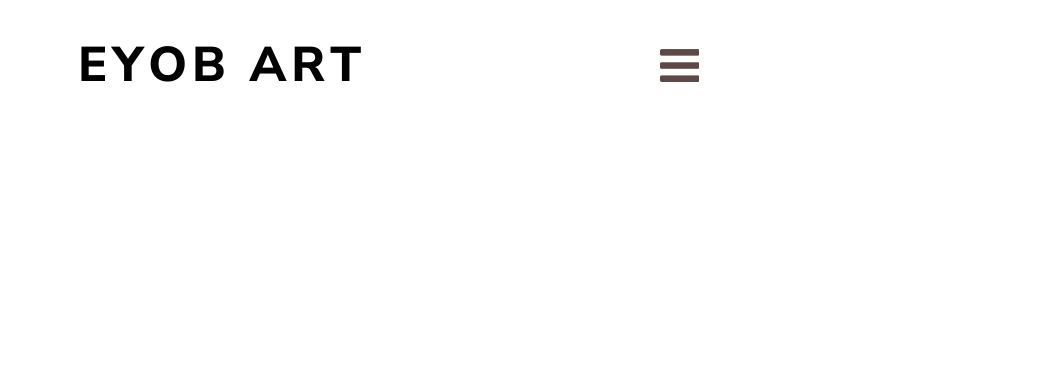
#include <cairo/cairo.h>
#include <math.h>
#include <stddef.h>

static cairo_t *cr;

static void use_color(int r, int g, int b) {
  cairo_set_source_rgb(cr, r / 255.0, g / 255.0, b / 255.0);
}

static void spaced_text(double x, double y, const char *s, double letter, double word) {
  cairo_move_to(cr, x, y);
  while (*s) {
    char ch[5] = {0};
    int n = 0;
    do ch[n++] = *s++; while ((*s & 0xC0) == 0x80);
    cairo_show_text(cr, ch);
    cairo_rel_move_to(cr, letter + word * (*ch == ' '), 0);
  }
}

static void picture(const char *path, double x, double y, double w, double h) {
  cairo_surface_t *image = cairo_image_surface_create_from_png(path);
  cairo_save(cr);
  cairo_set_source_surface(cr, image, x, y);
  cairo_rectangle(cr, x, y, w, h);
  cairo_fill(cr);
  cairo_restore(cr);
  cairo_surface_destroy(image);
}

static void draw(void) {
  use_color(255, 255, 255);
  cairo_paint(cr);
  picture("img_01.png", 660, 49, 39, 33);
  cairo_select_font_face(cr, "Nunito Sans ExtraBold", CAIRO_FONT_SLANT_NORMAL, CAIRO_FONT_WEIGHT_NORMAL);
  cairo_set_font_size(cr, 48.75);
  use_color(0, 0, 0);
  spaced_text(78, 81, "EYOB ART", 5, 0);
}

int main(void) {
  cairo_surface_t *surface = cairo_image_surface_create(CAIRO_FORMAT_RGB24, 1054, 366);
  cr = cairo_create(surface);
  cairo_font_options_t *options = cairo_font_options_create();
  cairo_font_options_set_hint_metrics(options, CAIRO_HINT_METRICS_OFF);
  cairo_font_options_set_hint_style(options, CAIRO_HINT_STYLE_NONE);
  cairo_set_font_options(cr, options);
  cairo_set_miter_limit(cr, 4);
  draw();
  cairo_surface_write_to_png(surface, "out.png");
  cairo_font_options_destroy(options);
  cairo_destroy(cr);
  cairo_surface_destroy(surface);
  return 0;
}
